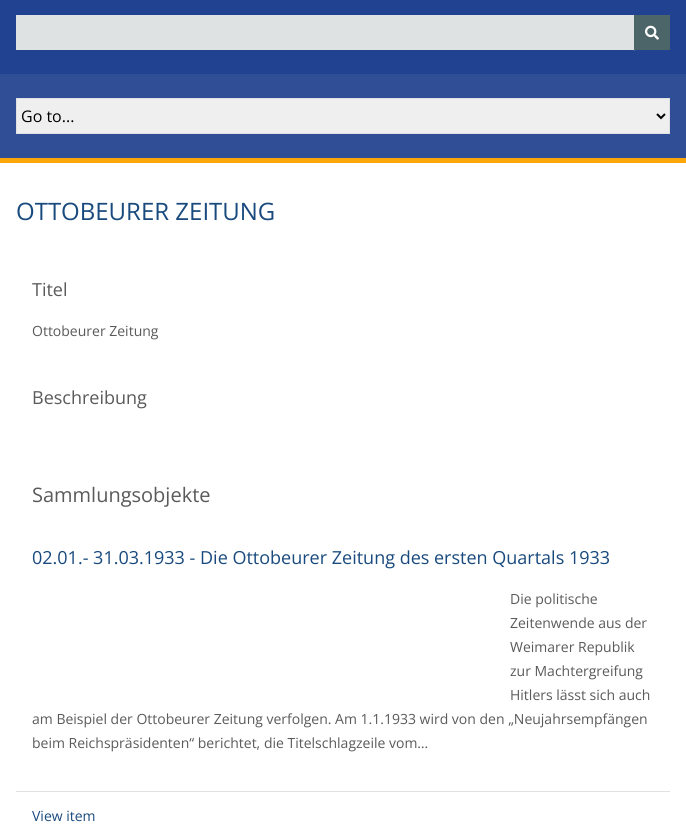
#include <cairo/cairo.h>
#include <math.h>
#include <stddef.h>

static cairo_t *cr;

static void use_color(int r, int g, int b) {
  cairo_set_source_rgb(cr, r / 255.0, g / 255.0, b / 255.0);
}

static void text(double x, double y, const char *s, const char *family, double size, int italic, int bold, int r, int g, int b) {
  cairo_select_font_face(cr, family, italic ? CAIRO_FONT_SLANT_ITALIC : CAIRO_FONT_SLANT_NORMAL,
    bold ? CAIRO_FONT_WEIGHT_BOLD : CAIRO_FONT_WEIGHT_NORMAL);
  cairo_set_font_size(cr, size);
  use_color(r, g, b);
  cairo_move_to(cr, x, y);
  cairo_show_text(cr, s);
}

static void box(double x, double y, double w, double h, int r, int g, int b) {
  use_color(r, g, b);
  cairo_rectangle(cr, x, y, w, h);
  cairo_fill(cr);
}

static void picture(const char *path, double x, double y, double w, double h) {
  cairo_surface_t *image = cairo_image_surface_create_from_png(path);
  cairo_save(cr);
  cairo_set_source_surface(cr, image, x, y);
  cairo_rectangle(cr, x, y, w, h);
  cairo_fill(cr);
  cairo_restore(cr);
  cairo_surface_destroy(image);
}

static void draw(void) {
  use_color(32, 66, 145);
  cairo_paint(cr);
  box(634, 50, 1, 1, 77, 104, 167);
  box(16, 15, 618, 35, 223, 226, 226);
  box(634, 15, 36, 35, 75, 101, 105);
  picture("img_01.png", 645, 25, 14, 15);
  box(0, 74, 686, 84, 48, 78, 149);
  box(0, 158, 686, 5, 251, 167, 9);
  use_color(239, 239, 239);
  cairo_rectangle(cr, 16.5, 98.5, 653, 35);
  cairo_fill_preserve(cr);
  use_color(223, 226, 226);
  cairo_set_line_width(cr, 1);
  cairo_stroke(cr);
  cairo_new_path(cr);
  cairo_move_to(cr, 657, 114);
  cairo_line_to(cr, 661, 118);
  cairo_line_to(cr, 665, 114);
  use_color(0, 0, 0);
  cairo_set_line_width(cr, 2);
  cairo_stroke(cr);
  box(0, 163, 686, 673, 255, 255, 255);
  box(16, 791, 654, 1, 223, 226, 226);
  text(21, 122, "Go to...", "Open Sans", 16, 0, 0, 0, 0, 0);
  text(16, 220, "OTTOBEURER ZEITUNG", "Open Sans", 24, 0, 0, 25, 74, 126);
  text(32, 296, "Titel", "Open Sans", 18, 0, 0, 90, 90, 90);
  text(32, 336, "Ottobeurer Zeitung", "Open Sans", 14, 0, 0, 90, 90, 90);
  text(32, 404, "Beschreibung", "Open Sans", 18, 0, 0, 90, 90, 90);
  text(32, 502, "Sammlungsobjekte", "Open Sans", 20, 0, 0, 90, 90, 90);
  text(32, 564, "02.01.- 31.03.1933 - Die Ottobeurer Zeitung des ersten Quartals 1933", "Open Sans", 18, 0, 0, 25, 74, 126);
  text(510, 604, "Die politische", "Open Sans", 14, 0, 0, 90, 90, 90);
  text(510, 628, "Zeitenwende aus der", "Open Sans", 14, 0, 0, 90, 90, 90);
  text(510, 652, "Weimarer Republik", "Open Sans", 14, 0, 0, 90, 90, 90);
  text(510, 676, "zur Machtergreifung", "Open Sans", 14, 0, 0, 90, 90, 90);
  text(510, 700, "Hitlers lässt sich auch", "Open Sans", 14, 0, 0, 90, 90, 90);
  text(32, 724, "am Beispiel der Ottobeurer Zeitung verfolgen. Am 1.1.1933 wird von den „Neujahrsempfängen", "Open Sans", 14, 0, 0, 90, 90, 90);
  text(32, 748, "beim Reichspräsidenten“ berichtet, die Titelschlagzeile vom…", "Open Sans", 14, 0, 0, 90, 90, 90);
  text(32, 821, "View item", "Open Sans", 14, 0, 0, 25, 74, 126);
}

int main(void) {
  cairo_surface_t *surface = cairo_image_surface_create(CAIRO_FORMAT_RGB24, 686, 836);
  cr = cairo_create(surface);
  cairo_font_options_t *options = cairo_font_options_create();
  cairo_font_options_set_hint_metrics(options, CAIRO_HINT_METRICS_OFF);
  cairo_font_options_set_hint_style(options, CAIRO_HINT_STYLE_NONE);
  cairo_set_font_options(cr, options);
  cairo_set_miter_limit(cr, 4);
  draw();
  cairo_surface_write_to_png(surface, "out.png");
  cairo_font_options_destroy(options);
  cairo_destroy(cr);
  cairo_surface_destroy(surface);
  return 0;
}
